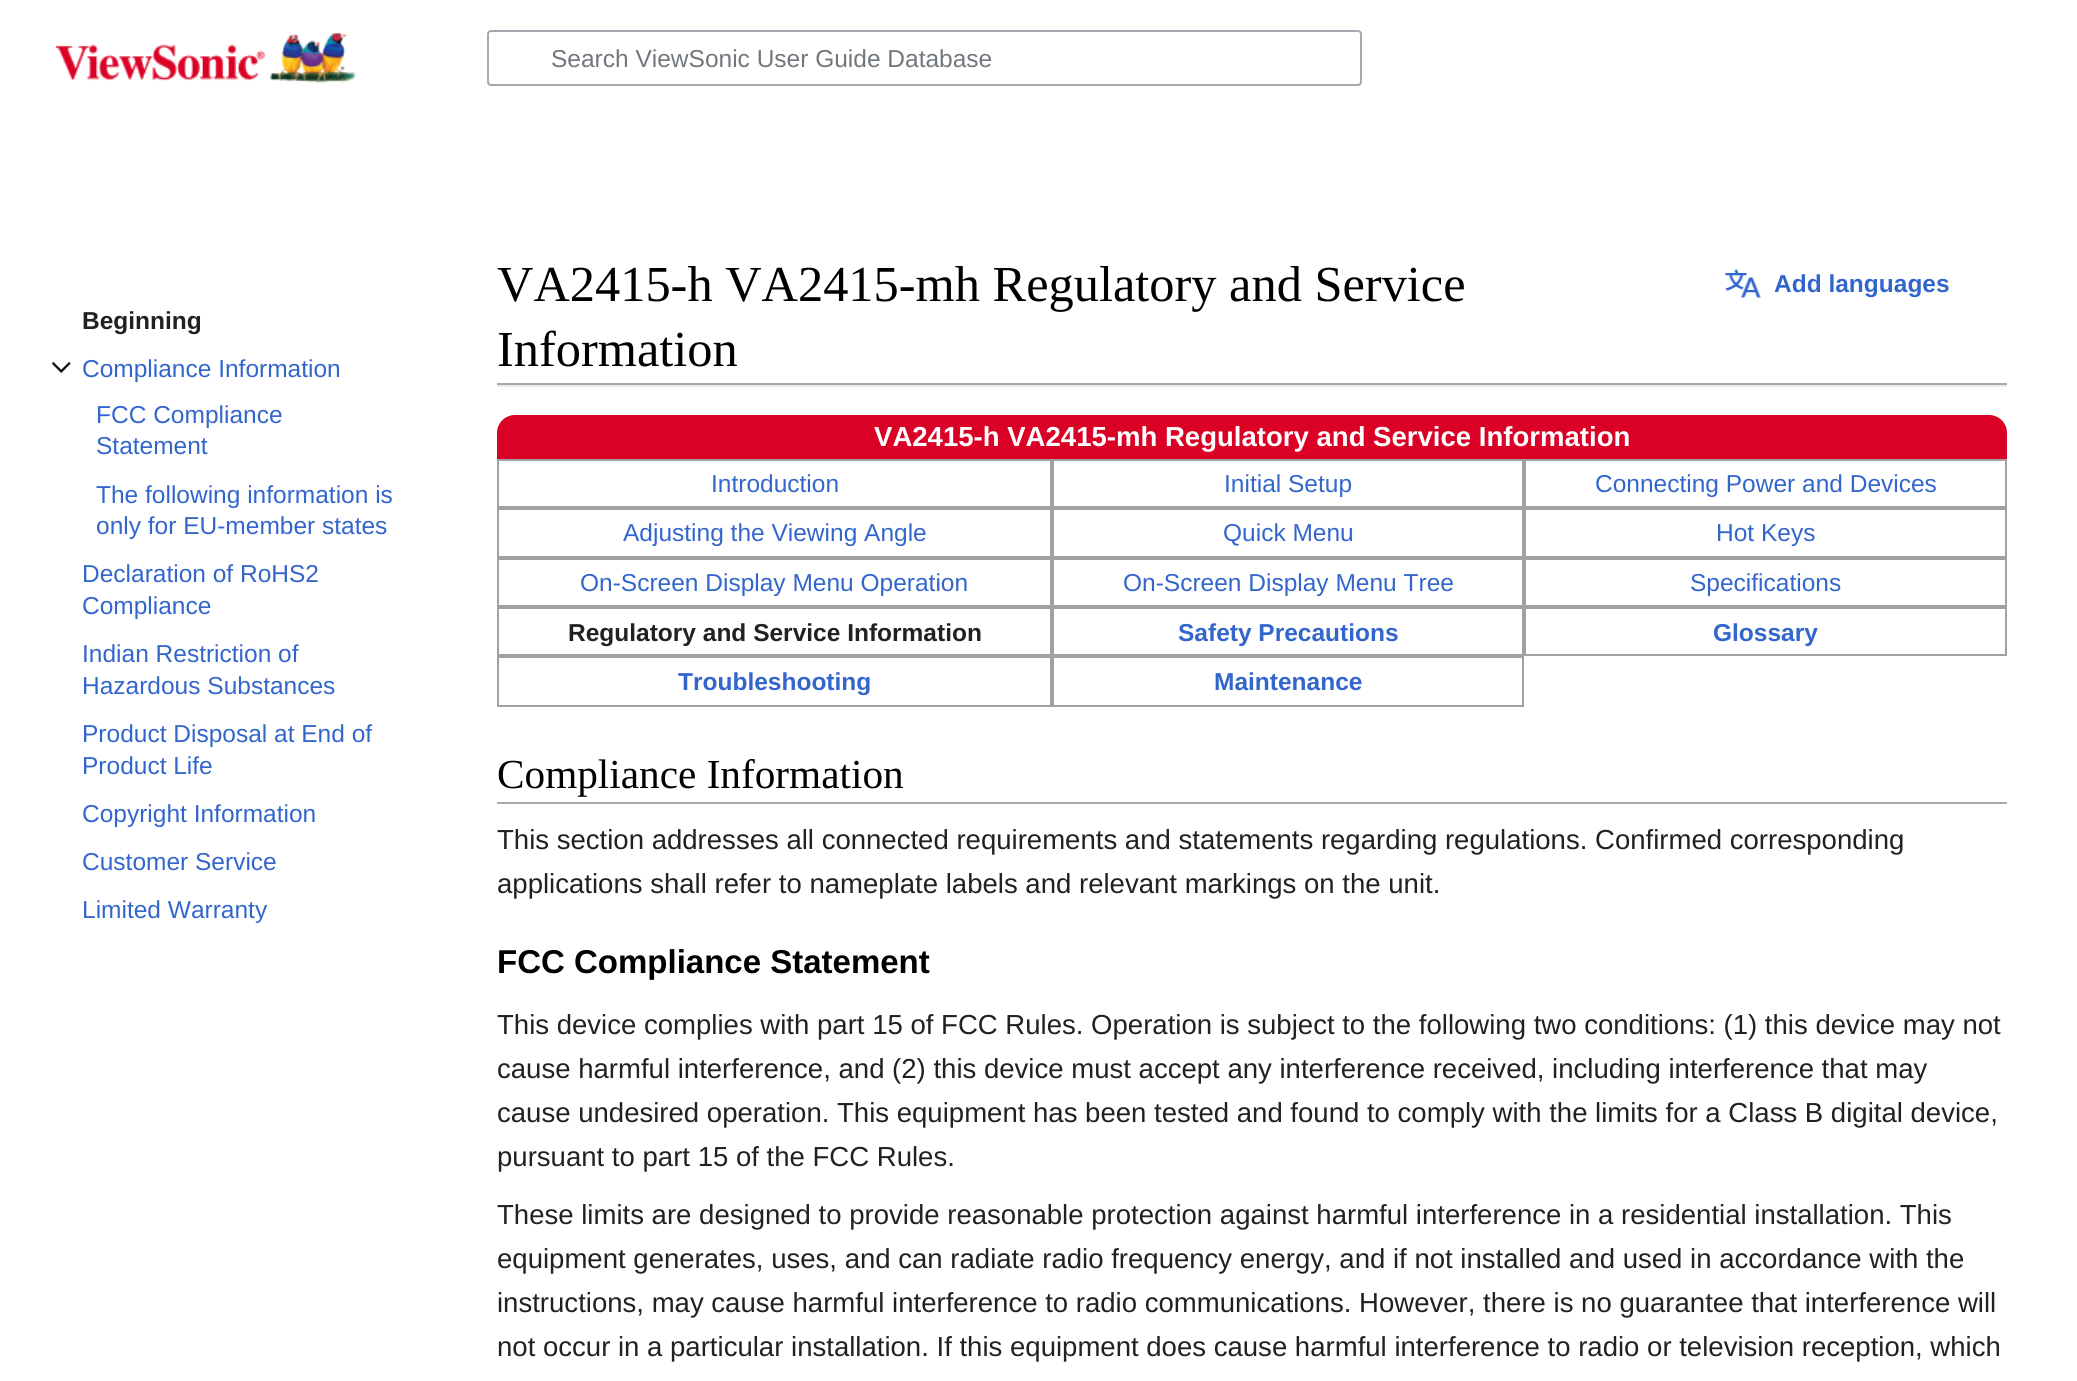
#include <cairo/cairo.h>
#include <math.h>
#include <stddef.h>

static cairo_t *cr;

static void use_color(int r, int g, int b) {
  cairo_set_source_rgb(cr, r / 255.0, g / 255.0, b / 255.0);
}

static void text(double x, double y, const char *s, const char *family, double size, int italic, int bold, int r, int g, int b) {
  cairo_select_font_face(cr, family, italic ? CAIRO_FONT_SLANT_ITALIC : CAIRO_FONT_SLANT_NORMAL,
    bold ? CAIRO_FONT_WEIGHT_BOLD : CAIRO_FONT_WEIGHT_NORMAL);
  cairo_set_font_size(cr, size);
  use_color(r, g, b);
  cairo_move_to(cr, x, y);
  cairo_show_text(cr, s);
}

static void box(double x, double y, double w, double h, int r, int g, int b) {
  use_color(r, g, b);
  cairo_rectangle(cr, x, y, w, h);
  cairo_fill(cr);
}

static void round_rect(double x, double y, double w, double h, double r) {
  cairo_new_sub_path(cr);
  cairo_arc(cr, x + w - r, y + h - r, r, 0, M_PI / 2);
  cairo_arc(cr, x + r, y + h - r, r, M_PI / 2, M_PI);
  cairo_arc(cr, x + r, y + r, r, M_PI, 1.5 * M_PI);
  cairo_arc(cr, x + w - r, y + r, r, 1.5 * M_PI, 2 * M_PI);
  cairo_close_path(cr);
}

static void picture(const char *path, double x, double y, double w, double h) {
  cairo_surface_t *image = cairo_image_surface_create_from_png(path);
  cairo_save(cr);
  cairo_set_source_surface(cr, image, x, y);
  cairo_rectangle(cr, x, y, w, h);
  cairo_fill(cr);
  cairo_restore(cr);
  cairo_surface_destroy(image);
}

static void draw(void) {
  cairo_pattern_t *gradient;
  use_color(255, 255, 255);
  cairo_paint(cr);
  picture("img_01.png", 56, 33, 300, 50);
  round_rect(488, 31, 873, 54, 3);
  use_color(162, 169, 177);
  cairo_stroke(cr);
  picture("img_02.png", 51, 361, 20, 13);
  box(497, 383, 1510, 2, 162, 169, 177);
  picture("img_03.png", 1725, 269, 36, 29);
  box(497, 385, 1510, 2, 234, 236, 240);
  use_color(219, 0, 37);
  cairo_new_path(cr);
  cairo_move_to(cr, 515, 415);
  cairo_line_to(cr, 1989, 415);
  cairo_curve_to(cr, 1999, 415, 2007, 423, 2007, 433);
  cairo_line_to(cr, 2007, 459);
  cairo_line_to(cr, 497, 459);
  cairo_line_to(cr, 497, 433);
  cairo_curve_to(cr, 497, 423, 505, 415, 515, 415);
  cairo_close_path(cr);
  cairo_fill(cr);
  cairo_rectangle(cr, 498, 460, 553, 47);
  use_color(161, 161, 161);
  cairo_stroke(cr);
  cairo_rectangle(cr, 1053, 460, 470, 47);
  cairo_stroke(cr);
  cairo_rectangle(cr, 1525, 460, 481, 47);
  cairo_stroke(cr);
  cairo_rectangle(cr, 498, 509, 553, 48);
  cairo_stroke(cr);
  cairo_rectangle(cr, 1053, 509, 470, 48);
  cairo_stroke(cr);
  cairo_rectangle(cr, 1525, 509, 481, 48);
  cairo_stroke(cr);
  cairo_rectangle(cr, 498, 559, 553, 47);
  cairo_stroke(cr);
  cairo_rectangle(cr, 1053, 559, 470, 47);
  cairo_stroke(cr);
  cairo_rectangle(cr, 1525, 559, 481, 47);
  cairo_stroke(cr);
  cairo_rectangle(cr, 498, 608, 553, 47);
  cairo_stroke(cr);
  cairo_rectangle(cr, 1053, 608, 470, 47);
  cairo_stroke(cr);
  cairo_rectangle(cr, 1525, 608, 481, 47);
  cairo_stroke(cr);
  cairo_rectangle(cr, 498, 657, 553, 49);
  cairo_stroke(cr);
  cairo_rectangle(cr, 1053, 657, 470, 49);
  cairo_stroke(cr);
  box(497, 802, 1510, 2, 162, 169, 177);
  text(551, 67, "Search ViewSonic User Guide Database", "Liberation Sans", 24.5, 0, 0, 114, 119, 125);
  text(82, 329, "Beginning", "Liberation Sans", 24.5, 0, 1, 32, 33, 34);
  text(82, 377, "Compliance Information", "Liberation Sans", 24.5, 0, 0, 51, 102, 204);
  text(96, 423, "FCC Compliance", "Liberation Sans", 24.5, 0, 0, 51, 102, 204);
  text(96, 454, "Statement", "Liberation Sans", 24.5, 0, 0, 51, 102, 204);
  text(96, 503, "The following information is", "Liberation Sans", 24.5, 0, 0, 51, 102, 204);
  text(96, 534, "only for EU-member states", "Liberation Sans", 24.5, 0, 0, 51, 102, 204);
  text(82, 582, "Declaration of RoHS2", "Liberation Sans", 24.5, 0, 0, 51, 102, 204);
  text(82, 614, "Compliance", "Liberation Sans", 24.5, 0, 0, 51, 102, 204);
  text(82, 662, "Indian Restriction of", "Liberation Sans", 24.5, 0, 0, 51, 102, 204);
  text(82, 694, "Hazardous Substances", "Liberation Sans", 24.5, 0, 0, 51, 102, 204);
  text(82, 742, "Product Disposal at End of", "Liberation Sans", 24.5, 0, 0, 51, 102, 204);
  text(82, 774, "Product Life", "Liberation Sans", 24.5, 0, 0, 51, 102, 204);
  text(82, 822, "Copyright Information", "Liberation Sans", 24.5, 0, 0, 51, 102, 204);
  text(82, 870, "Customer Service", "Liberation Sans", 24.5, 0, 0, 51, 102, 204);
  text(82, 918, "Limited Warranty", "Liberation Sans", 24.5, 0, 0, 51, 102, 204);
  gradient = cairo_pattern_create_linear(207, 917, 207, 970);
  cairo_pattern_add_color_stop_rgba(gradient, 0, 1, 1, 1, 0);
  cairo_pattern_add_color_stop_rgba(gradient, 1, 1, 1, 1, 1);
  cairo_set_source(cr, gradient);
  cairo_pattern_destroy(gradient);
  cairo_rectangle(cr, 256, 918, 6, 5);
  cairo_fill(cr);
  text(497, 301, "VA2415-h VA2415-mh Regulatory and Service", "Liberation Serif", 50.4, 0, 0, 0, 0, 0);
  text(497, 366, "Information", "Liberation Serif", 50.4, 0, 0, 0, 0, 0);
  text(1774, 292, "Add languages", "Liberation Sans", 24.5, 0, 1, 51, 102, 204);
  text(874, 446, "VA2415-h VA2415-mh Regulatory and Service Information", "Liberation Sans", 27.55, 0, 1, 255, 255, 255);
  text(711, 492, "Introduction", "Liberation Sans", 24.5, 0, 0, 51, 102, 204);
  text(1224, 492, "Initial Setup", "Liberation Sans", 24.5, 0, 0, 51, 102, 204);
  text(1595, 492, "Connecting Power and Devices", "Liberation Sans", 24.5, 0, 0, 51, 102, 204);
  text(623, 541, "Adjusting the Viewing Angle", "Liberation Sans", 24.5, 0, 0, 51, 102, 204);
  text(1223, 541, "Quick Menu", "Liberation Sans", 24.5, 0, 0, 51, 102, 204);
  text(1716, 541, "Hot Keys", "Liberation Sans", 24.5, 0, 0, 51, 102, 204);
  text(580, 591, "On-Screen Display Menu Operation", "Liberation Sans", 24.5, 0, 0, 51, 102, 204);
  text(1123, 591, "On-Screen Display Menu Tree", "Liberation Sans", 24.5, 0, 0, 51, 102, 204);
  text(1690, 591, "Specifications", "Liberation Sans", 24.5, 0, 0, 51, 102, 204);
  text(568, 641, "Regulatory and Service Information", "Liberation Sans", 24.5, 0, 1, 32, 33, 34);
  text(1178, 641, "Safety Precautions", "Liberation Sans", 24.5, 0, 1, 51, 102, 204);
  text(1713, 641, "Glossary", "Liberation Sans", 24.5, 0, 1, 51, 102, 204);
  text(678, 690, "Troubleshooting", "Liberation Sans", 24.5, 0, 1, 51, 102, 204);
  text(1214, 690, "Maintenance", "Liberation Sans", 24.5, 0, 1, 51, 102, 204);
  text(497, 788, "Compliance Information", "Liberation Serif", 41.25, 0, 0, 0, 0, 0);
  text(497, 849, "This section addresses all connected requirements and statements regarding regulations. Confirmed corresponding", "Liberation Sans", 27.55, 0, 0, 32, 33, 34);
  text(497, 893, "applications shall refer to nameplate labels and relevant markings on the unit.", "Liberation Sans", 27.55, 0, 0, 32, 33, 34);
  text(497, 973, "FCC Compliance Statement", "Liberation Sans", 33, 0, 1, 0, 0, 0);
  text(497, 1034, "This device complies with part 15 of FCC Rules. Operation is subject to the following two conditions: (1) this device may not", "Liberation Sans", 27.55, 0, 0, 32, 33, 34);
  text(497, 1078, "cause harmful interference, and (2) this device must accept any interference received, including interference that may", "Liberation Sans", 27.55, 0, 0, 32, 33, 34);
  text(497, 1122, "cause undesired operation. This equipment has been tested and found to comply with the limits for a Class B digital device,", "Liberation Sans", 27.55, 0, 0, 32, 33, 34);
  text(497, 1166, "pursuant to part 15 of the FCC Rules.", "Liberation Sans", 27.55, 0, 0, 32, 33, 34);
  text(497, 1224, "These limits are designed to provide reasonable protection against harmful interference in a residential installation. This", "Liberation Sans", 27.55, 0, 0, 32, 33, 34);
  text(497, 1268, "equipment generates, uses, and can radiate radio frequency energy, and if not installed and used in accordance with the", "Liberation Sans", 27.55, 0, 0, 32, 33, 34);
  text(497, 1312, "instructions, may cause harmful interference to radio communications. However, there is no guarantee that interference will", "Liberation Sans", 27.55, 0, 0, 32, 33, 34);
  text(497, 1356, "not occur in a particular installation. If this equipment does cause harmful interference to radio or television reception, which", "Liberation Sans", 27.55, 0, 0, 32, 33, 34);
}

int main(void) {
  cairo_surface_t *surface = cairo_image_surface_create(CAIRO_FORMAT_RGB24, 2077, 1381);
  cr = cairo_create(surface);
  cairo_font_options_t *options = cairo_font_options_create();
  cairo_font_options_set_hint_metrics(options, CAIRO_HINT_METRICS_OFF);
  cairo_font_options_set_hint_style(options, CAIRO_HINT_STYLE_NONE);
  cairo_set_font_options(cr, options);
  cairo_set_miter_limit(cr, 4);
  draw();
  cairo_surface_write_to_png(surface, "out.png");
  cairo_font_options_destroy(options);
  cairo_destroy(cr);
  cairo_surface_destroy(surface);
  return 0;
}
